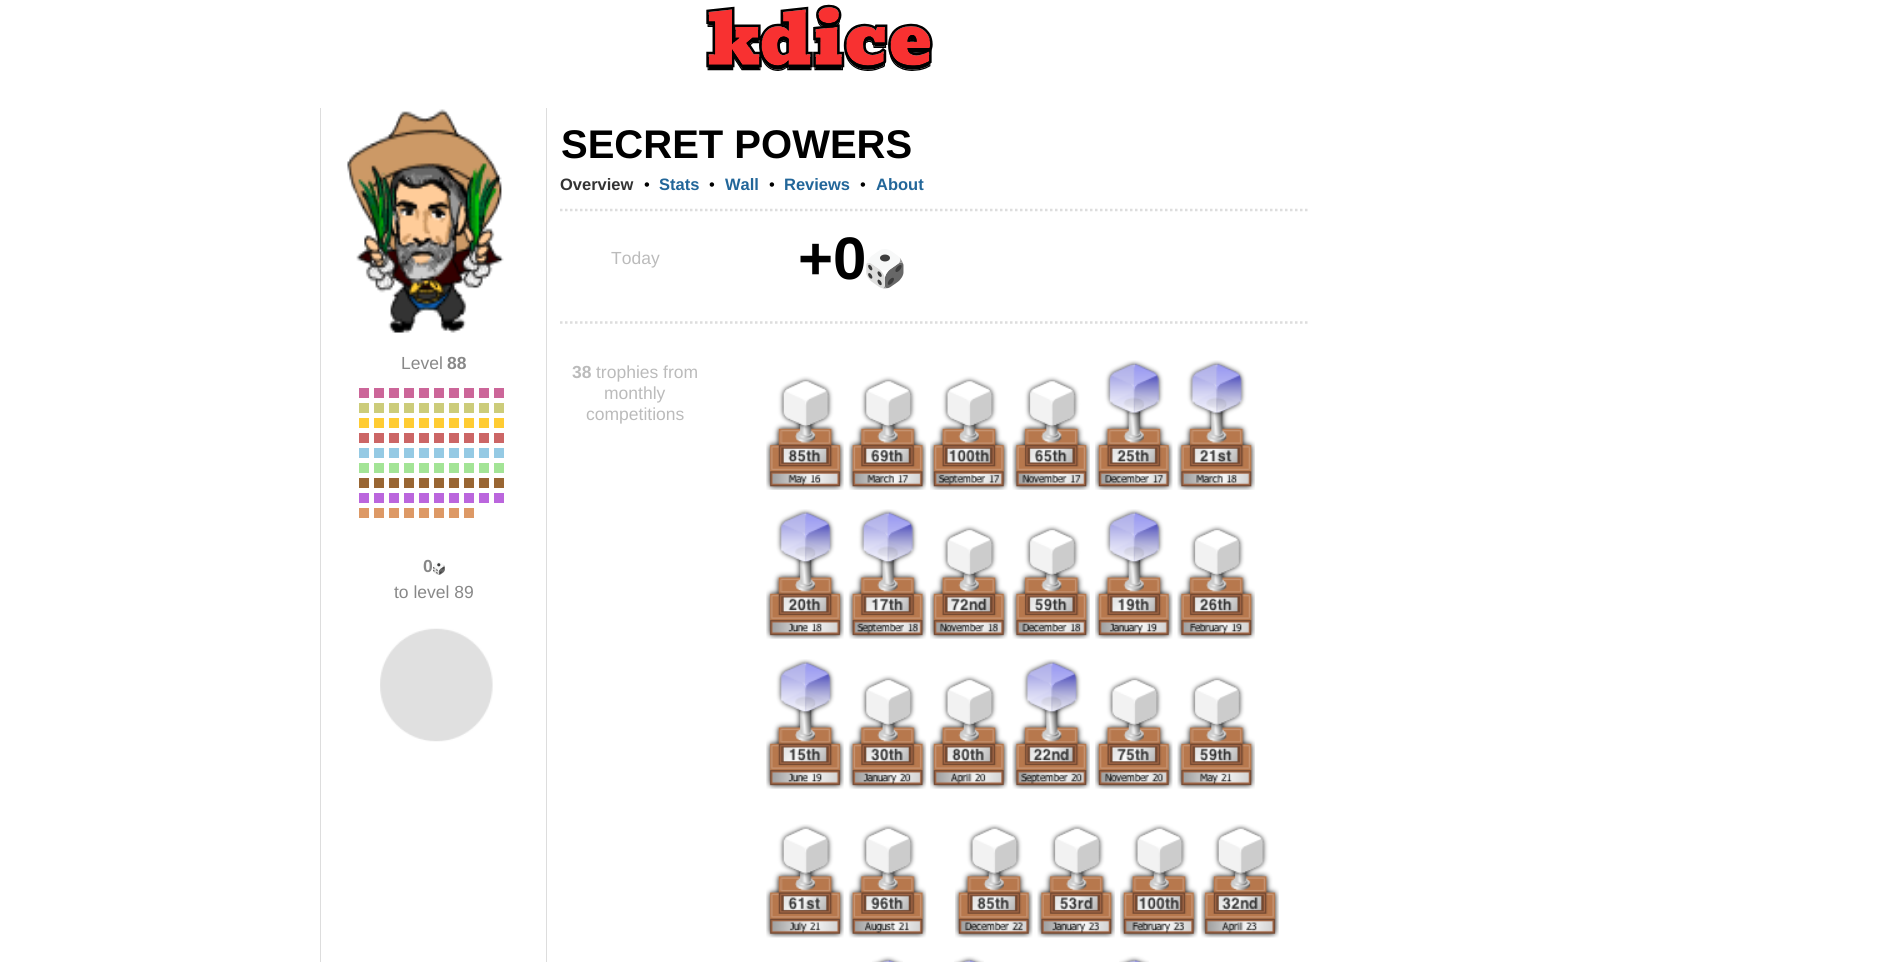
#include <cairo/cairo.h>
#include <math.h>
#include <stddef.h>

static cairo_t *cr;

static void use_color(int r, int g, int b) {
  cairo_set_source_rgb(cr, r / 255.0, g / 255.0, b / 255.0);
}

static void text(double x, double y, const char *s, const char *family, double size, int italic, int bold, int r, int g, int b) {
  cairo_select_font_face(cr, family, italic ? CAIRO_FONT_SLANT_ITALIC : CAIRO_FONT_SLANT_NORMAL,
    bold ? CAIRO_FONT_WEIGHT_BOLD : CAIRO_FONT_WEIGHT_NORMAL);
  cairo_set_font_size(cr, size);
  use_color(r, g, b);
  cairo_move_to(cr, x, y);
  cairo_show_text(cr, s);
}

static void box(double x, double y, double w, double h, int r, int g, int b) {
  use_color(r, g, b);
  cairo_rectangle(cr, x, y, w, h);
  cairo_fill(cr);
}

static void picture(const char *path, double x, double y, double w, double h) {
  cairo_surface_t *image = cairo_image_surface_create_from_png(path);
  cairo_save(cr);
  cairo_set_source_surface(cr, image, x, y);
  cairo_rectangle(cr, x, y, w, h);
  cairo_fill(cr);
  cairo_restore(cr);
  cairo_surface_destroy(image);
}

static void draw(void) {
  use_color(255, 255, 255);
  cairo_paint(cr);
  picture("img_01.png", 706, 4, 227, 67);
  cairo_new_path(cr);
  cairo_move_to(cr, 560, 210);
  cairo_line_to(cr, 1307.5, 210);
  use_color(221, 221, 221);
  cairo_set_line_width(cr, 2.5);
  cairo_set_dash(cr, (double[]){2.5, 2.5}, 2, 0);
  cairo_stroke(cr);
  picture("img_02.png", 866, 249, 38, 40);
  cairo_new_path(cr);
  cairo_move_to(cr, 560, 322.5);
  cairo_line_to(cr, 1307.5, 322.5);
  cairo_stroke(cr);
  picture("img_03.png", 766, 376, 78, 114);
  picture("img_04.png", 848, 376, 79, 114);
  picture("img_05.png", 930, 376, 78, 114);
  picture("img_06.png", 1012, 376, 78, 114);
  picture("img_07.png", 1095, 360, 78, 130);
  picture("img_08.png", 1177, 360, 78, 130);
  picture("img_09.png", 766, 509, 78, 130);
  picture("img_10.png", 848, 509, 79, 130);
  picture("img_11.png", 930, 525, 78, 114);
  picture("img_12.png", 1012, 525, 78, 114);
  picture("img_13.png", 1095, 509, 78, 130);
  picture("img_14.png", 1177, 525, 78, 114);
  picture("img_15.png", 766, 659, 78, 130);
  picture("img_16.png", 848, 675, 79, 114);
  picture("img_17.png", 930, 675, 78, 114);
  picture("img_18.png", 1012, 659, 78, 130);
  picture("img_19.png", 1095, 675, 78, 114);
  picture("img_20.png", 1177, 675, 78, 114);
  picture("img_21.png", 766, 824, 78, 114);
  picture("img_22.png", 848, 824, 79, 114);
  picture("img_23.png", 955, 824, 78, 114);
  picture("img_24.png", 1037, 824, 78, 114);
  picture("img_25.png", 1120, 824, 78, 114);
  picture("img_26.png", 1201, 824, 78, 114);
  picture("img_27.png", 872, 956, 31, 6);
  picture("img_28.png", 954, 956, 30, 6);
  picture("img_29.png", 1119, 956, 30, 6);
  box(546, 108, 1, 854, 221, 221, 221);
  box(320, 108, 1, 854, 221, 221, 221);
  picture("img_30.png", 347, 109, 157, 224);
  box(359, 388, 10, 10, 204, 102, 153);
  box(374, 388, 10, 10, 204, 102, 153);
  box(389, 388, 10, 10, 204, 102, 153);
  box(404, 388, 10, 10, 204, 102, 153);
  box(419, 388, 10, 10, 204, 102, 153);
  box(434, 388, 10, 10, 204, 102, 153);
  box(449, 388, 10, 10, 204, 102, 153);
  box(464, 388, 10, 10, 204, 102, 153);
  box(479, 388, 10, 10, 204, 102, 153);
  box(494, 388, 10, 10, 204, 102, 153);
  box(359, 403, 10, 10, 204, 204, 122);
  box(374, 403, 10, 10, 204, 204, 122);
  box(389, 403, 10, 10, 204, 204, 122);
  box(404, 403, 10, 10, 204, 204, 122);
  box(419, 403, 10, 10, 204, 204, 122);
  box(434, 403, 10, 10, 204, 204, 122);
  box(449, 403, 10, 10, 204, 204, 122);
  box(464, 403, 10, 10, 204, 204, 122);
  box(479, 403, 10, 10, 204, 204, 122);
  box(494, 403, 10, 10, 204, 204, 122);
  box(359, 418, 10, 10, 255, 204, 51);
  box(374, 418, 10, 10, 255, 204, 51);
  box(389, 418, 10, 10, 255, 204, 51);
  box(404, 418, 10, 10, 255, 204, 51);
  box(419, 418, 10, 10, 255, 204, 51);
  box(434, 418, 10, 10, 255, 204, 51);
  box(449, 418, 10, 10, 255, 204, 51);
  box(464, 418, 10, 10, 255, 204, 51);
  box(479, 418, 10, 10, 255, 204, 51);
  box(494, 418, 10, 10, 255, 204, 51);
  box(359, 433, 10, 10, 204, 102, 102);
  box(374, 433, 10, 10, 204, 102, 102);
  box(389, 433, 10, 10, 204, 102, 102);
  box(404, 433, 10, 10, 204, 102, 102);
  box(419, 433, 10, 10, 204, 102, 102);
  box(434, 433, 10, 10, 204, 102, 102);
  box(449, 433, 10, 10, 204, 102, 102);
  box(464, 433, 10, 10, 204, 102, 102);
  box(479, 433, 10, 10, 204, 102, 102);
  box(494, 433, 10, 10, 204, 102, 102);
  box(359, 448, 10, 10, 149, 202, 228);
  box(374, 448, 10, 10, 149, 202, 228);
  box(389, 448, 10, 10, 149, 202, 228);
  box(404, 448, 10, 10, 149, 202, 228);
  box(419, 448, 10, 10, 149, 202, 228);
  box(434, 448, 10, 10, 149, 202, 228);
  box(449, 448, 10, 10, 149, 202, 228);
  box(464, 448, 10, 10, 149, 202, 228);
  box(479, 448, 10, 10, 149, 202, 228);
  box(494, 448, 10, 10, 149, 202, 228);
  box(359, 463, 10, 10, 163, 228, 150);
  box(374, 463, 10, 10, 163, 228, 150);
  box(389, 463, 10, 10, 163, 228, 150);
  box(404, 463, 10, 10, 163, 228, 150);
  box(419, 463, 10, 10, 163, 228, 150);
  box(434, 463, 10, 10, 163, 228, 150);
  box(449, 463, 10, 10, 163, 228, 150);
  box(464, 463, 10, 10, 163, 228, 150);
  box(479, 463, 10, 10, 163, 228, 150);
  box(494, 463, 10, 10, 163, 228, 150);
  box(359, 478, 10, 10, 153, 102, 51);
  box(374, 478, 10, 10, 153, 102, 51);
  box(389, 478, 10, 10, 153, 102, 51);
  box(404, 478, 10, 10, 153, 102, 51);
  box(419, 478, 10, 10, 153, 102, 51);
  box(434, 478, 10, 10, 153, 102, 51);
  box(449, 478, 10, 10, 153, 102, 51);
  box(464, 478, 10, 10, 153, 102, 51);
  box(479, 478, 10, 10, 153, 102, 51);
  box(494, 478, 10, 10, 153, 102, 51);
  box(359, 493, 10, 10, 187, 102, 221);
  box(374, 493, 10, 10, 187, 102, 221);
  box(389, 493, 10, 10, 187, 102, 221);
  box(404, 493, 10, 10, 187, 102, 221);
  box(419, 493, 10, 10, 187, 102, 221);
  box(434, 493, 10, 10, 187, 102, 221);
  box(449, 493, 10, 10, 187, 102, 221);
  box(464, 493, 10, 10, 187, 102, 221);
  box(479, 493, 10, 10, 187, 102, 221);
  box(494, 493, 10, 10, 187, 102, 221);
  box(359, 508, 10, 10, 221, 153, 102);
  box(374, 508, 10, 10, 221, 153, 102);
  box(389, 508, 10, 10, 221, 153, 102);
  box(404, 508, 10, 10, 221, 153, 102);
  box(419, 508, 10, 10, 221, 153, 102);
  box(434, 508, 10, 10, 221, 153, 102);
  box(449, 508, 10, 10, 221, 153, 102);
  box(464, 508, 10, 10, 221, 153, 102);
  picture("img_31.png", 433, 562, 12, 13);
  picture("img_32.png", 380, 628, 113, 114);
  text(561, 158, "SECRET POWERS", "Liberation Sans", 40, 0, 1, 0, 0, 0);
  text(560, 190, "Overview", "Liberation Sans", 16.5, 0, 1, 51, 51, 51);
  text(644, 190, "•", "Liberation Sans", 16.5, 0, 0, 0, 0, 0);
  text(659, 190, "Stats", "Liberation Sans", 16.5, 0, 1, 34, 102, 153);
  text(709, 190, "•", "Liberation Sans", 16.5, 0, 0, 0, 0, 0);
  text(725, 190, "Wall", "Liberation Sans", 16.5, 0, 1, 34, 102, 153);
  text(769, 190, "•", "Liberation Sans", 16.5, 0, 0, 0, 0, 0);
  text(784, 190, "Reviews", "Liberation Sans", 16.5, 0, 1, 34, 102, 153);
  text(860, 190, "•", "Liberation Sans", 16.5, 0, 0, 0, 0, 0);
  text(876, 190, "About", "Liberation Sans", 16.5, 0, 1, 34, 102, 153);
  text(611, 264, "Today", "Liberation Sans", 17.5, 0, 0, 187, 187, 187);
  text(798, 279, "+0", "Liberation Sans", 60, 0, 1, 0, 0, 0);
  text(572, 378, "38", "Liberation Sans", 17.5, 0, 1, 187, 187, 187);
  text(596, 378, "trophies from", "Liberation Sans", 17.5, 0, 0, 187, 187, 187);
  text(604, 399, "monthly", "Liberation Sans", 17.5, 0, 0, 187, 187, 187);
  text(586, 420, "competitions", "Liberation Sans", 17.5, 0, 0, 187, 187, 187);
  text(401, 369, "Level", "Liberation Sans", 17.5, 0, 0, 136, 136, 136);
  text(447, 369, "88", "Liberation Sans", 17.5, 0, 1, 136, 136, 136);
  text(423, 572, "0", "Liberation Sans", 17.5, 0, 1, 136, 136, 136);
  text(394, 598, "to level 89", "Liberation Sans", 17.5, 0, 0, 136, 136, 136);
}

int main(void) {
  cairo_surface_t *surface = cairo_image_surface_create(CAIRO_FORMAT_RGB24, 1890, 962);
  cr = cairo_create(surface);
  cairo_font_options_t *options = cairo_font_options_create();
  cairo_font_options_set_hint_metrics(options, CAIRO_HINT_METRICS_OFF);
  cairo_font_options_set_hint_style(options, CAIRO_HINT_STYLE_NONE);
  cairo_set_font_options(cr, options);
  cairo_set_miter_limit(cr, 4);
  draw();
  cairo_surface_write_to_png(surface, "out.png");
  cairo_font_options_destroy(options);
  cairo_destroy(cr);
  cairo_surface_destroy(surface);
  return 0;
}
